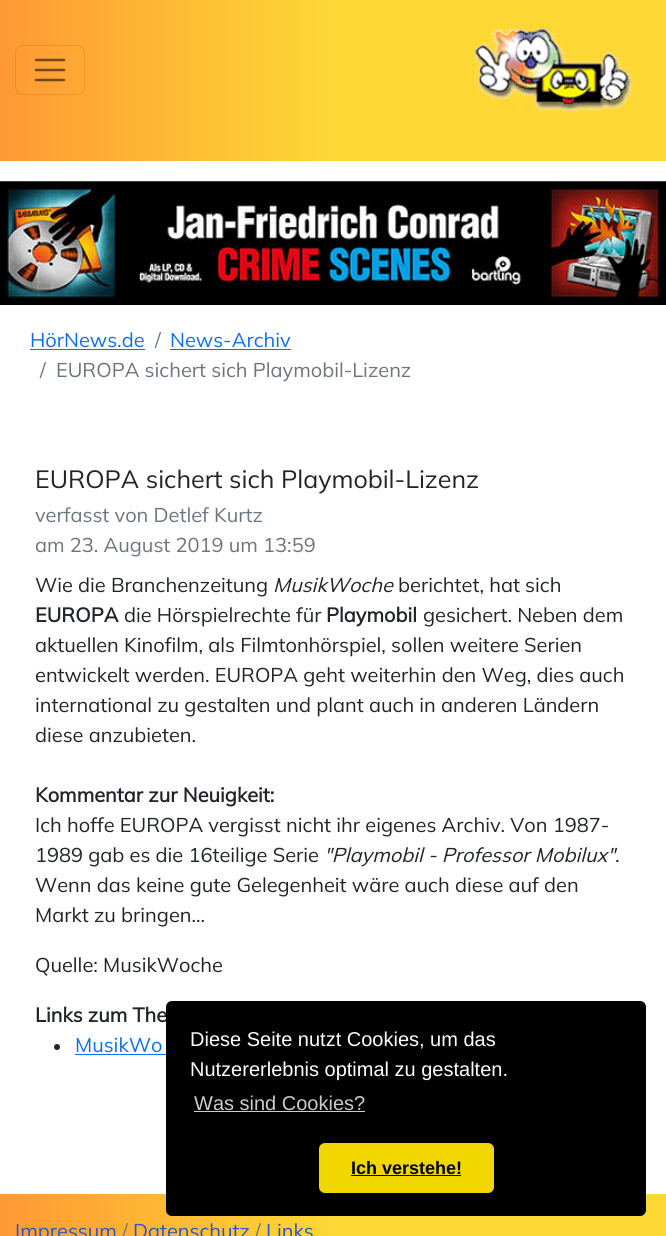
#include <cairo/cairo.h>
#include <math.h>
#include <stddef.h>

static cairo_t *cr;

static void use_color(int r, int g, int b) {
  cairo_set_source_rgb(cr, r / 255.0, g / 255.0, b / 255.0);
}

static void text(double x, double y, const char *s, const char *family, double size, int italic, int bold, int r, int g, int b) {
  cairo_select_font_face(cr, family, italic ? CAIRO_FONT_SLANT_ITALIC : CAIRO_FONT_SLANT_NORMAL,
    bold ? CAIRO_FONT_WEIGHT_BOLD : CAIRO_FONT_WEIGHT_NORMAL);
  cairo_set_font_size(cr, size);
  use_color(r, g, b);
  cairo_move_to(cr, x, y);
  cairo_show_text(cr, s);
}

static void box(double x, double y, double w, double h, int r, int g, int b) {
  use_color(r, g, b);
  cairo_rectangle(cr, x, y, w, h);
  cairo_fill(cr);
}

static void round_rect(double x, double y, double w, double h, double r) {
  cairo_new_sub_path(cr);
  cairo_arc(cr, x + w - r, y + h - r, r, 0, M_PI / 2);
  cairo_arc(cr, x + r, y + h - r, r, M_PI / 2, M_PI);
  cairo_arc(cr, x + r, y + r, r, M_PI, 1.5 * M_PI);
  cairo_arc(cr, x + w - r, y + r, r, 1.5 * M_PI, 2 * M_PI);
  cairo_close_path(cr);
}

static void picture(const char *path, double x, double y, double w, double h) {
  cairo_surface_t *image = cairo_image_surface_create_from_png(path);
  cairo_save(cr);
  cairo_set_source_surface(cr, image, x, y);
  cairo_rectangle(cr, x, y, w, h);
  cairo_fill(cr);
  cairo_restore(cr);
  cairo_surface_destroy(image);
}

static void draw(void) {
  cairo_pattern_t *gradient;
  use_color(255, 255, 255);
  cairo_paint(cr);
  gradient = cairo_pattern_create_linear(0, 81, 666, 81);
  cairo_pattern_add_color_stop_rgba(gradient, 0, 1, 0.6, 0.204, 1);
  cairo_pattern_add_color_stop_rgba(gradient, 0.5, 0.992, 0.847, 0.208, 1);
  cairo_set_source(cr, gradient);
  cairo_pattern_destroy(gradient);
  cairo_rectangle(cr, 0, 0, 666, 161);
  cairo_fill(cr);
  round_rect(15.5, 45.5, 69, 49, 7.5);
  cairo_set_source_rgba(cr, 0, 0, 0, 0.1);
  cairo_set_line_width(cr, 1);
  cairo_stroke(cr);
  cairo_new_path(cr);
  cairo_move_to(cr, 36, 60);
  cairo_line_to(cr, 64, 60);
  cairo_move_to(cr, 36, 70);
  cairo_line_to(cr, 64, 70);
  cairo_move_to(cr, 36, 80);
  cairo_line_to(cr, 64, 80);
  cairo_set_source_rgba(cr, 0, 0, 0, 0.55);
  cairo_set_line_width(cr, 2.5);
  cairo_set_line_cap(cr, CAIRO_LINE_CAP_ROUND);
  cairo_stroke(cr);
  picture("img_01.png", 475, 28, 157, 84);
  picture("img_02.png", 0, 181, 666, 124);
  box(30, 349, 115, 1, 13, 110, 253);
  box(170, 349, 121, 1, 13, 110, 253);
  use_color(33, 37, 41);
  cairo_arc(cr, 57, 1047, 3, 0, 2 * M_PI);
  cairo_fill(cr);
  box(75, 1054, 91, 1, 13, 110, 253);
  gradient = cairo_pattern_create_linear(0, 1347, 666, 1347);
  cairo_pattern_add_color_stop_rgba(gradient, 0, 1, 0.6, 0.204, 1);
  cairo_pattern_add_color_stop_rgba(gradient, 0.5, 0.992, 0.847, 0.208, 1);
  cairo_set_source(cr, gradient);
  cairo_pattern_destroy(gradient);
  cairo_rectangle(cr, 0, 1194, 666, 42);
  cairo_fill(cr);
  text(30, 347, "HörNews.de", "Mulish ExtraLight", 20, 0, 0, 13, 110, 253);
  text(155, 347, "/", "Mulish ExtraLight", 20, 0, 0, 108, 117, 125);
  text(170, 347, "News-Archiv", "Mulish ExtraLight", 20, 0, 0, 13, 110, 253);
  text(40, 377, "/", "Mulish ExtraLight", 20, 0, 0, 108, 117, 125);
  text(56, 377, "EUROPA sichert sich Playmobil-Lizenz", "Mulish ExtraLight", 20, 0, 0, 108, 117, 125);
  text(35, 488, "EUROPA sichert sich Playmobil-Lizenz", "Mulish ExtraLight", 25, 0, 0, 33, 37, 41);
  text(35, 522, "verfasst von Detlef Kurtz", "Mulish ExtraLight", 20, 0, 0, 108, 117, 125);
  text(35, 552, "am 23. August 2019 um 13:59", "Mulish ExtraLight", 20, 0, 0, 108, 117, 125);
  text(35, 592, "Wie die Branchenzeitung", "Mulish ExtraLight", 20, 0, 0, 33, 37, 41);
  text(273, 592, "MusikWoche", "Mulish ExtraLight", 20, 1, 0, 33, 37, 41);
  text(398, 592, "berichtet, hat sich", "Mulish ExtraLight", 20, 0, 0, 33, 37, 41);
  text(35, 622, "EUROPA", "Mulish", 20, 0, 1, 33, 37, 41);
  text(124, 622, "die Hörspielrechte für", "Mulish ExtraLight", 20, 0, 0, 33, 37, 41);
  text(326, 622, "Playmobil", "Mulish", 20, 0, 1, 33, 37, 41);
  text(423, 622, "gesichert. Neben dem", "Mulish ExtraLight", 20, 0, 0, 33, 37, 41);
  text(35, 652, "aktuellen Kinofilm, als Filmtonhörspiel, sollen weitere Serien", "Mulish ExtraLight", 20, 0, 0, 33, 37, 41);
  text(35, 682, "entwickelt werden. EUROPA geht weiterhin den Weg, dies auch", "Mulish ExtraLight", 20, 0, 0, 33, 37, 41);
  text(35, 712, "international zu gestalten und plant auch in anderen Ländern", "Mulish ExtraLight", 20, 0, 0, 33, 37, 41);
  text(35, 742, "diese anzubieten.", "Mulish ExtraLight", 20, 0, 0, 33, 37, 41);
  text(35, 802, "Kommentar zur Neuigkeit:", "Mulish", 20, 0, 1, 33, 37, 41);
  text(35, 832, "Ich hoffe EUROPA vergisst nicht ihr eigenes Archiv. Von 1987-", "Mulish ExtraLight", 20, 0, 0, 33, 37, 41);
  text(35, 862, "1989 gab es die 16teilige Serie", "Mulish ExtraLight", 20, 0, 0, 33, 37, 41);
  text(324, 862, "\"Playmobil - Professor Mobilux\"", "Mulish ExtraLight", 20, 1, 0, 33, 37, 41);
  text(615, 862, ".", "Mulish ExtraLight", 20, 0, 0, 33, 37, 41);
  text(35, 892, "Wenn das keine gute Gelegenheit wäre auch diese auf den", "Mulish ExtraLight", 20, 0, 0, 33, 37, 41);
  text(35, 922, "Markt zu bringen...", "Mulish ExtraLight", 20, 0, 0, 33, 37, 41);
  text(35, 972, "Quelle: MusikWoche", "Mulish ExtraLight", 20, 0, 0, 33, 37, 41);
  text(35, 1022, "Links zum The", "Mulish", 20, 0, 1, 33, 37, 41);
  text(75, 1052, "MusikWo", "Mulish ExtraLight", 20, 0, 0, 13, 110, 253);
  use_color(0, 0, 0);
  round_rect(166, 1001, 480, 215, 6);
  cairo_fill(cr);
  text(190, 1046, "Diese Seite nutzt Cookies, um das", "Liberation Sans", 20, 0, 0, 255, 255, 255);
  text(190, 1076, "Nutzererlebnis optimal zu gestalten.", "Liberation Sans", 20, 0, 0, 255, 255, 255);
  text(194, 1110, "Was sind Cookies?", "Liberation Sans", 20, 0, 0, 204, 204, 204);
  box(194, 1111, 171, 1, 204, 204, 204);
  use_color(241, 214, 0);
  round_rect(319, 1143, 175, 50, 6);
  cairo_fill(cr);
  text(351, 1174, "Ich verstehe!", "Liberation Sans", 18, 0, 1, 0, 0, 0);
  box(351, 1175, 110, 1, 0, 0, 0);
  text(15, 1238, "Impressum", "Mulish ExtraLight", 20, 0, 0, 42, 86, 198);
  text(122, 1238, "/", "Mulish ExtraLight", 20, 0, 0, 108, 117, 125);
  text(133, 1238, "Datenschutz", "Mulish ExtraLight", 20, 0, 0, 42, 86, 198);
  text(255, 1238, "/", "Mulish ExtraLight", 20, 0, 0, 108, 117, 125);
  text(266, 1238, "Links", "Mulish ExtraLight", 20, 0, 0, 42, 86, 198);
}

int main(void) {
  cairo_surface_t *surface = cairo_image_surface_create(CAIRO_FORMAT_RGB24, 666, 1236);
  cr = cairo_create(surface);
  cairo_font_options_t *options = cairo_font_options_create();
  cairo_font_options_set_hint_metrics(options, CAIRO_HINT_METRICS_OFF);
  cairo_font_options_set_hint_style(options, CAIRO_HINT_STYLE_NONE);
  cairo_set_font_options(cr, options);
  cairo_set_miter_limit(cr, 4);
  draw();
  cairo_surface_write_to_png(surface, "out.png");
  cairo_font_options_destroy(options);
  cairo_destroy(cr);
  cairo_surface_destroy(surface);
  return 0;
}
